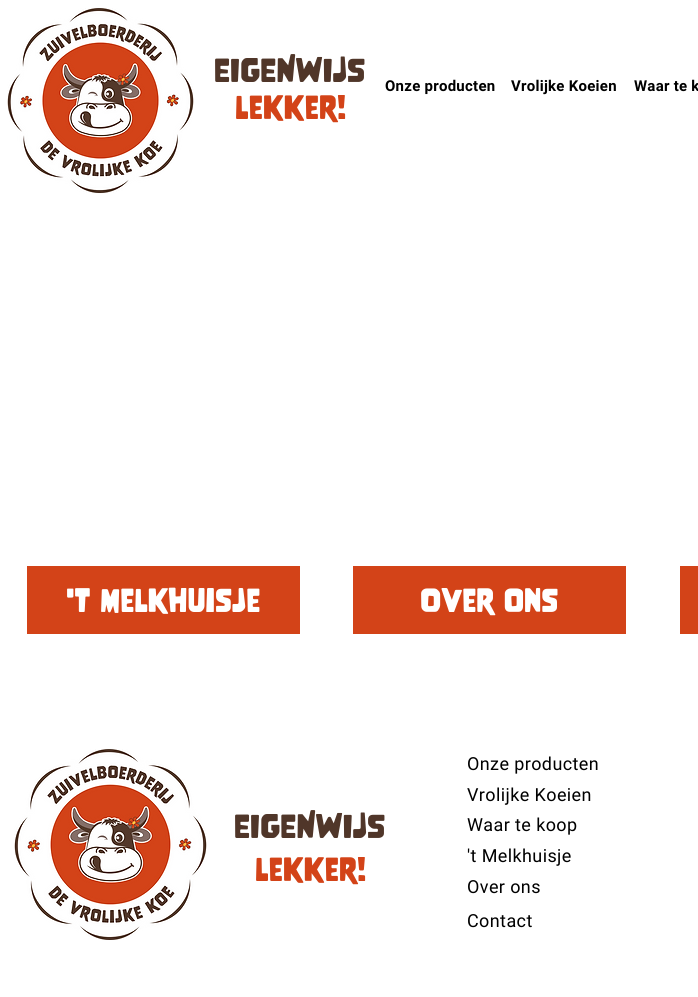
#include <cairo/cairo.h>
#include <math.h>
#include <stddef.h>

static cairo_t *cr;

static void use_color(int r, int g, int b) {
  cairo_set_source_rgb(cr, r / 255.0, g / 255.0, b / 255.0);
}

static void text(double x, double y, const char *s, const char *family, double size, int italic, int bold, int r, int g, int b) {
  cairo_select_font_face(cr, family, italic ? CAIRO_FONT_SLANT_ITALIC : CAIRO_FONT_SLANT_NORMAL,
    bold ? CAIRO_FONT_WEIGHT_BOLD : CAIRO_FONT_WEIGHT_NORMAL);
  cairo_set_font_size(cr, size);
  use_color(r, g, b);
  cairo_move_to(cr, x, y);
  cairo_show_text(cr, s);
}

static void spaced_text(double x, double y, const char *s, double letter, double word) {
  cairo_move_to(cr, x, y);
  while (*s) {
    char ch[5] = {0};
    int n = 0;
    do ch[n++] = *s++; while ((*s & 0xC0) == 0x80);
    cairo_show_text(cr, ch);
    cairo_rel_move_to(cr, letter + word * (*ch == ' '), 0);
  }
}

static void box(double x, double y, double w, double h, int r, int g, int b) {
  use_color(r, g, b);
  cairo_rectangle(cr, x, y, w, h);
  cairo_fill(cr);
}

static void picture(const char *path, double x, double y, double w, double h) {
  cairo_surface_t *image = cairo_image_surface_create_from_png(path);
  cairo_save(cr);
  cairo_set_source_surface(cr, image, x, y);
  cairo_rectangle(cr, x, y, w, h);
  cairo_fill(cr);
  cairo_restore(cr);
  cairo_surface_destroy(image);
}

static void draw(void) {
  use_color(255, 255, 255);
  cairo_paint(cr);
  picture("img_01.png", 7, 8, 187, 186);
  box(27, 566, 273, 68, 211, 67, 24);
  box(353, 566, 273, 68, 211, 67, 24);
  box(680, 566, 18, 68, 211, 67, 24);
  picture("img_02.png", 14, 749, 193, 191);
  cairo_select_font_face(cr, "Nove", CAIRO_FONT_SLANT_NORMAL, CAIRO_FONT_WEIGHT_NORMAL);
  cairo_set_font_size(cr, 30);
  use_color(80, 54, 41);
  spaced_text(214, 82, "EIGENWIJS", 0.25, 0);
  use_color(211, 67, 24);
  spaced_text(235, 119, "lekker!", 0.25, 0);
  cairo_select_font_face(cr, "Roboto", CAIRO_FONT_SLANT_NORMAL, CAIRO_FONT_WEIGHT_BOLD);
  cairo_set_font_size(cr, 15);
  use_color(0, 0, 0);
  spaced_text(385, 91, "Onze producten", 0.25, 0);
  spaced_text(511, 91, "Vrolijke Koeien", 0.25, 0);
  spaced_text(634, 91, "Waar te k", 0.25, 0);
  text(66, 612, "'t Melkhuisje", "Nove", 30, 0, 0, 255, 255, 255);
  text(420, 612, "Over ons", "Nove", 30, 0, 0, 255, 255, 255);
  cairo_select_font_face(cr, "Roboto", CAIRO_FONT_SLANT_NORMAL, CAIRO_FONT_WEIGHT_NORMAL);
  cairo_set_font_size(cr, 18);
  use_color(0, 0, 0);
  spaced_text(467, 770, "Onze producten", 0.4, 0);
  spaced_text(467, 801, "Vrolijke Koeien", 0.4, 0);
  cairo_select_font_face(cr, "Nove", CAIRO_FONT_SLANT_NORMAL, CAIRO_FONT_WEIGHT_NORMAL);
  cairo_set_font_size(cr, 30);
  use_color(80, 54, 41);
  spaced_text(234, 838, "EIGENWIJS", 0.25, 0);
  cairo_select_font_face(cr, "Roboto", CAIRO_FONT_SLANT_NORMAL, CAIRO_FONT_WEIGHT_NORMAL);
  cairo_set_font_size(cr, 18);
  use_color(0, 0, 0);
  spaced_text(467, 831, "Waar te koop", 0.4, 0);
  cairo_select_font_face(cr, "Nove", CAIRO_FONT_SLANT_NORMAL, CAIRO_FONT_WEIGHT_NORMAL);
  cairo_set_font_size(cr, 30);
  use_color(211, 67, 24);
  spaced_text(255, 881, "lekker!", 0.25, 0);
  cairo_select_font_face(cr, "Roboto", CAIRO_FONT_SLANT_NORMAL, CAIRO_FONT_WEIGHT_NORMAL);
  cairo_set_font_size(cr, 18);
  use_color(0, 0, 0);
  spaced_text(467, 862, "'t Melkhuisje", 0.4, 0);
  spaced_text(467, 893, "Over ons", 0.4, 0);
  spaced_text(467, 927, "Contact", 0.4, 0);
}

int main(void) {
  cairo_surface_t *surface = cairo_image_surface_create(CAIRO_FORMAT_RGB24, 698, 997);
  cr = cairo_create(surface);
  cairo_font_options_t *options = cairo_font_options_create();
  cairo_font_options_set_hint_metrics(options, CAIRO_HINT_METRICS_OFF);
  cairo_font_options_set_hint_style(options, CAIRO_HINT_STYLE_NONE);
  cairo_set_font_options(cr, options);
  cairo_set_miter_limit(cr, 4);
  draw();
  cairo_surface_write_to_png(surface, "out.png");
  cairo_font_options_destroy(options);
  cairo_destroy(cr);
  cairo_surface_destroy(surface);
  return 0;
}
